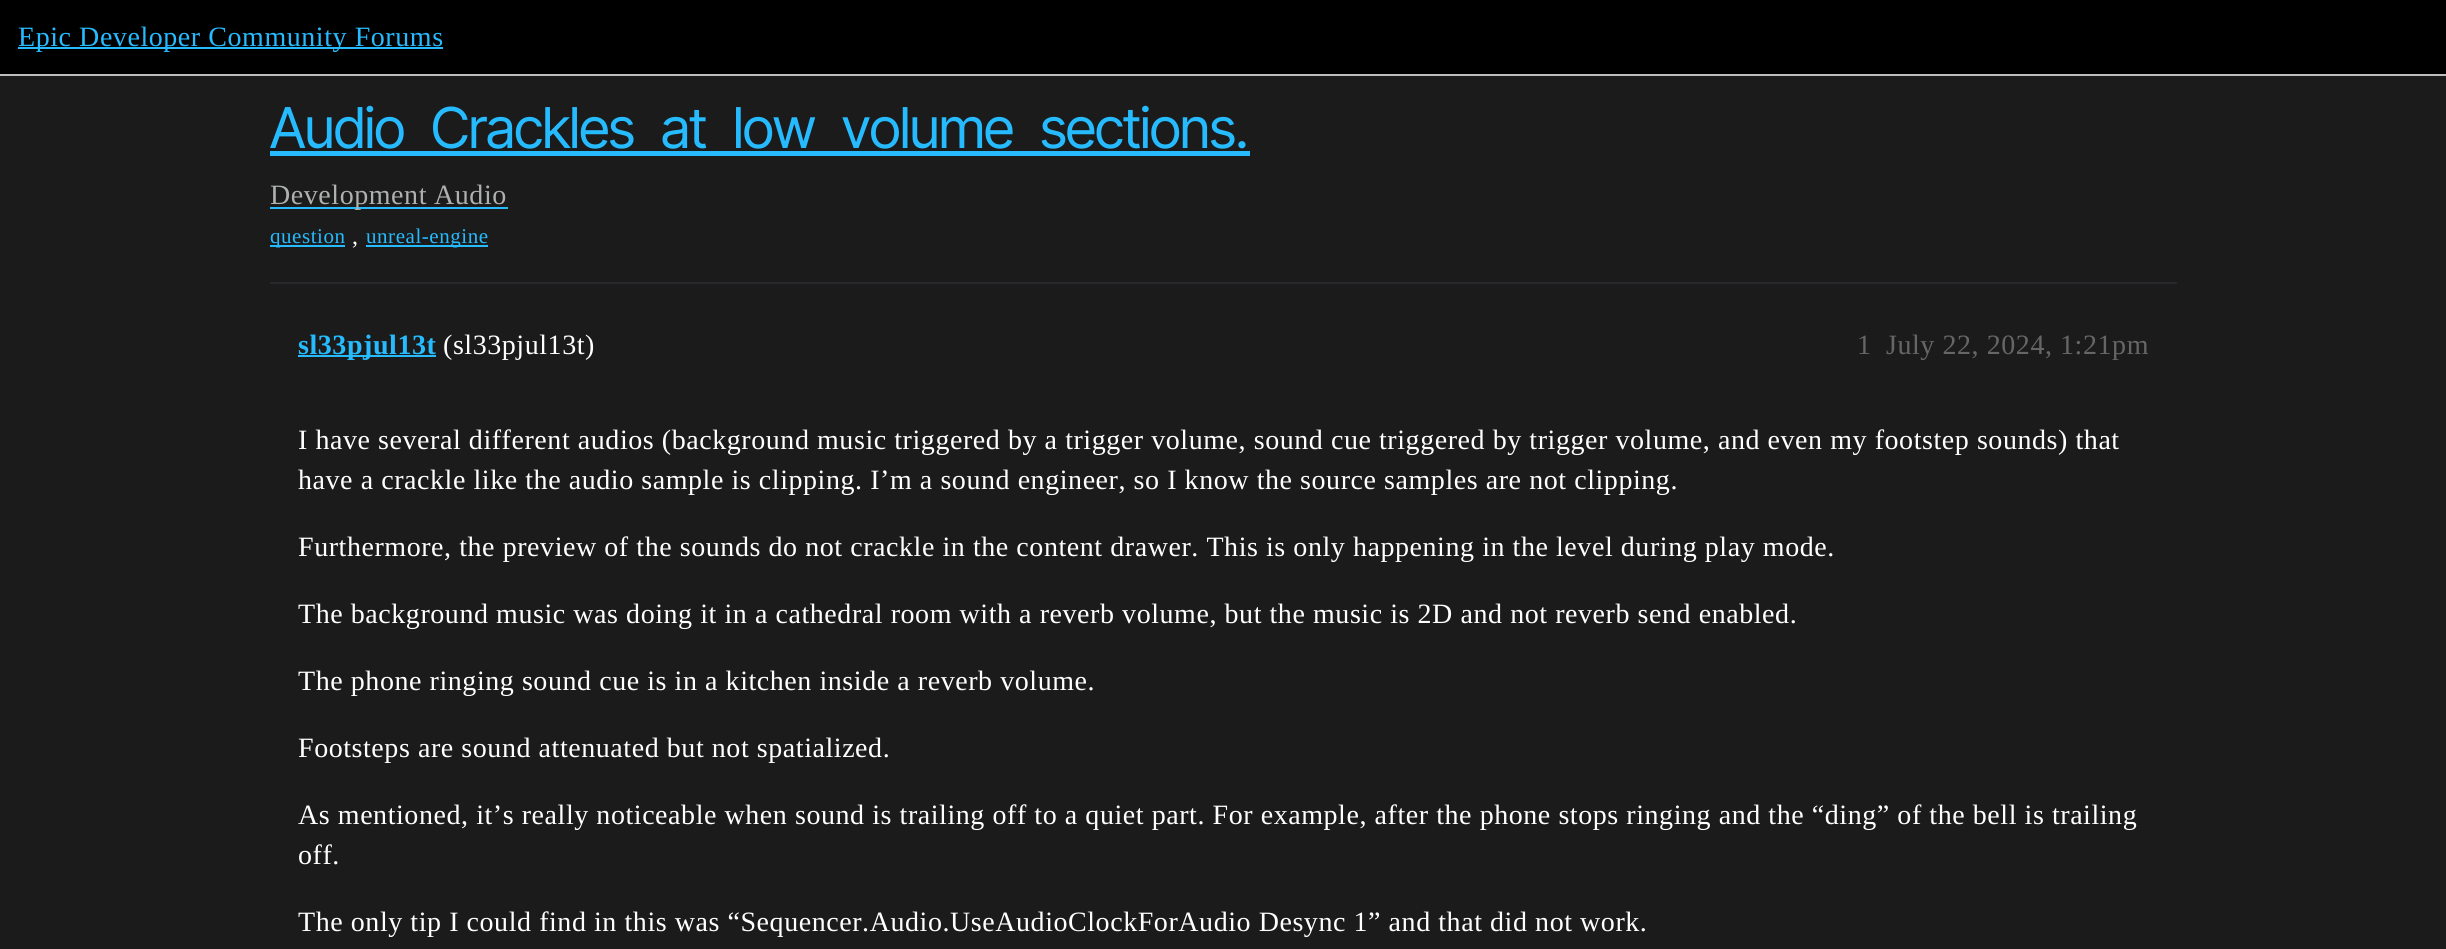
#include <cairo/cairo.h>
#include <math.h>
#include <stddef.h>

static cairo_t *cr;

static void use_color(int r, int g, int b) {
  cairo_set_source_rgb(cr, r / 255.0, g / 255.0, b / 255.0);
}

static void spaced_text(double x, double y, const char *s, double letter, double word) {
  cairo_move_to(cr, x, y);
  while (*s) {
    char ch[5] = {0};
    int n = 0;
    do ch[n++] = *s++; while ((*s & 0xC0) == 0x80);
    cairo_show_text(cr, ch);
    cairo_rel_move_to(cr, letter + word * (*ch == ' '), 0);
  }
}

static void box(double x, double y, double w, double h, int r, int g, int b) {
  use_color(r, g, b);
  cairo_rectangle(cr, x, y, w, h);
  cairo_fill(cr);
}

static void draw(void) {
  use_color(27, 27, 27);
  cairo_paint(cr);
  box(0, 0, 2446, 74, 0, 0, 0);
  box(0, 74, 2446, 2, 189, 189, 189);
  box(18, 47, 425, 2, 38, 187, 255);
  box(270, 151, 980, 5, 38, 187, 255);
  box(270, 207, 238, 2, 38, 187, 255);
  box(270, 245, 75, 2, 38, 187, 255);
  box(366, 245, 122, 2, 38, 187, 255);
  box(270, 282, 1907, 2, 40, 40, 44);
  box(298, 355, 138, 2, 38, 187, 255);
  cairo_select_font_face(cr, "Liberation Serif", CAIRO_FONT_SLANT_NORMAL, CAIRO_FONT_WEIGHT_NORMAL);
  cairo_set_font_size(cr, 28);
  spaced_text(18, 46, "Epic Developer Community Forums", 0.56, 0);
  cairo_select_font_face(cr, "Inter Tight", CAIRO_FONT_SLANT_NORMAL, CAIRO_FONT_WEIGHT_NORMAL);
  cairo_set_font_size(cr, 56.3);
  spaced_text(270, 148, "Audio Crackles at low volume sections.", -0.9, 14.5);
  cairo_select_font_face(cr, "Liberation Serif", CAIRO_FONT_SLANT_NORMAL, CAIRO_FONT_WEIGHT_NORMAL);
  cairo_set_font_size(cr, 28);
  use_color(175, 176, 176);
  spaced_text(270, 204, "Development", 0.56, 0);
  spaced_text(434, 204, "Audio", 0.56, 0);
  cairo_set_font_size(cr, 21);
  use_color(38, 187, 255);
  spaced_text(270, 243, "question", 0.56, 0);
  cairo_set_font_size(cr, 24);
  use_color(255, 255, 255);
  spaced_text(352, 244, ",", 0.56, 0);
  cairo_set_font_size(cr, 21);
  use_color(38, 187, 255);
  spaced_text(366, 243, "unreal-engine", 0.56, 0);
  cairo_select_font_face(cr, "Liberation Serif", CAIRO_FONT_SLANT_NORMAL, CAIRO_FONT_WEIGHT_BOLD);
  cairo_set_font_size(cr, 28);
  spaced_text(298, 354, "sl33pjul13t", 0.56, 0);
  cairo_select_font_face(cr, "Liberation Serif", CAIRO_FONT_SLANT_NORMAL, CAIRO_FONT_WEIGHT_NORMAL);
  use_color(255, 255, 255);
  spaced_text(443, 354, "(sl33pjul13t)", 0.56, 0);
  use_color(102, 102, 102);
  spaced_text(1857, 354, "1", 0.56, 0);
  spaced_text(1886, 354, "July 22, 2024, 1:21pm", 0.56, 0);
  use_color(255, 255, 255);
  spaced_text(298, 449, "I have several different audios (background music triggered by a trigger volume, sound cue triggered by trigger volume, and even my footstep sounds) that", 0.56, 0);
  spaced_text(298, 489, "have a crackle like the audio sample is clipping. I’m a sound engineer, so I know the source samples are not clipping.", 0.56, 0);
  spaced_text(298, 556, "Furthermore, the preview of the sounds do not crackle in the content drawer. This is only happening in the level during play mode.", 0.56, 0);
  spaced_text(298, 623, "The background music was doing it in a cathedral room with a reverb volume, but the music is 2D and not reverb send enabled.", 0.56, 0);
  spaced_text(298, 690, "The phone ringing sound cue is in a kitchen inside a reverb volume.", 0.56, 0);
  spaced_text(298, 757, "Footsteps are sound attenuated but not spatialized.", 0.56, 0);
  spaced_text(298, 824, "As mentioned, it’s really noticeable when sound is trailing off to a quiet part. For example, after the phone stops ringing and the “ding” of the bell is trailing", 0.56, 0);
  spaced_text(298, 864, "off.", 0.56, 0);
  spaced_text(298, 931, "The only tip I could find in this was “Sequencer.Audio.UseAudioClockForAudio Desync 1” and that did not work.", 0.56, 0);
}

int main(void) {
  cairo_surface_t *surface = cairo_image_surface_create(CAIRO_FORMAT_RGB24, 2446, 949);
  cr = cairo_create(surface);
  cairo_font_options_t *options = cairo_font_options_create();
  cairo_font_options_set_hint_metrics(options, CAIRO_HINT_METRICS_OFF);
  cairo_font_options_set_hint_style(options, CAIRO_HINT_STYLE_NONE);
  cairo_set_font_options(cr, options);
  cairo_set_miter_limit(cr, 4);
  draw();
  cairo_surface_write_to_png(surface, "out.png");
  cairo_font_options_destroy(options);
  cairo_destroy(cr);
  cairo_surface_destroy(surface);
  return 0;
}
